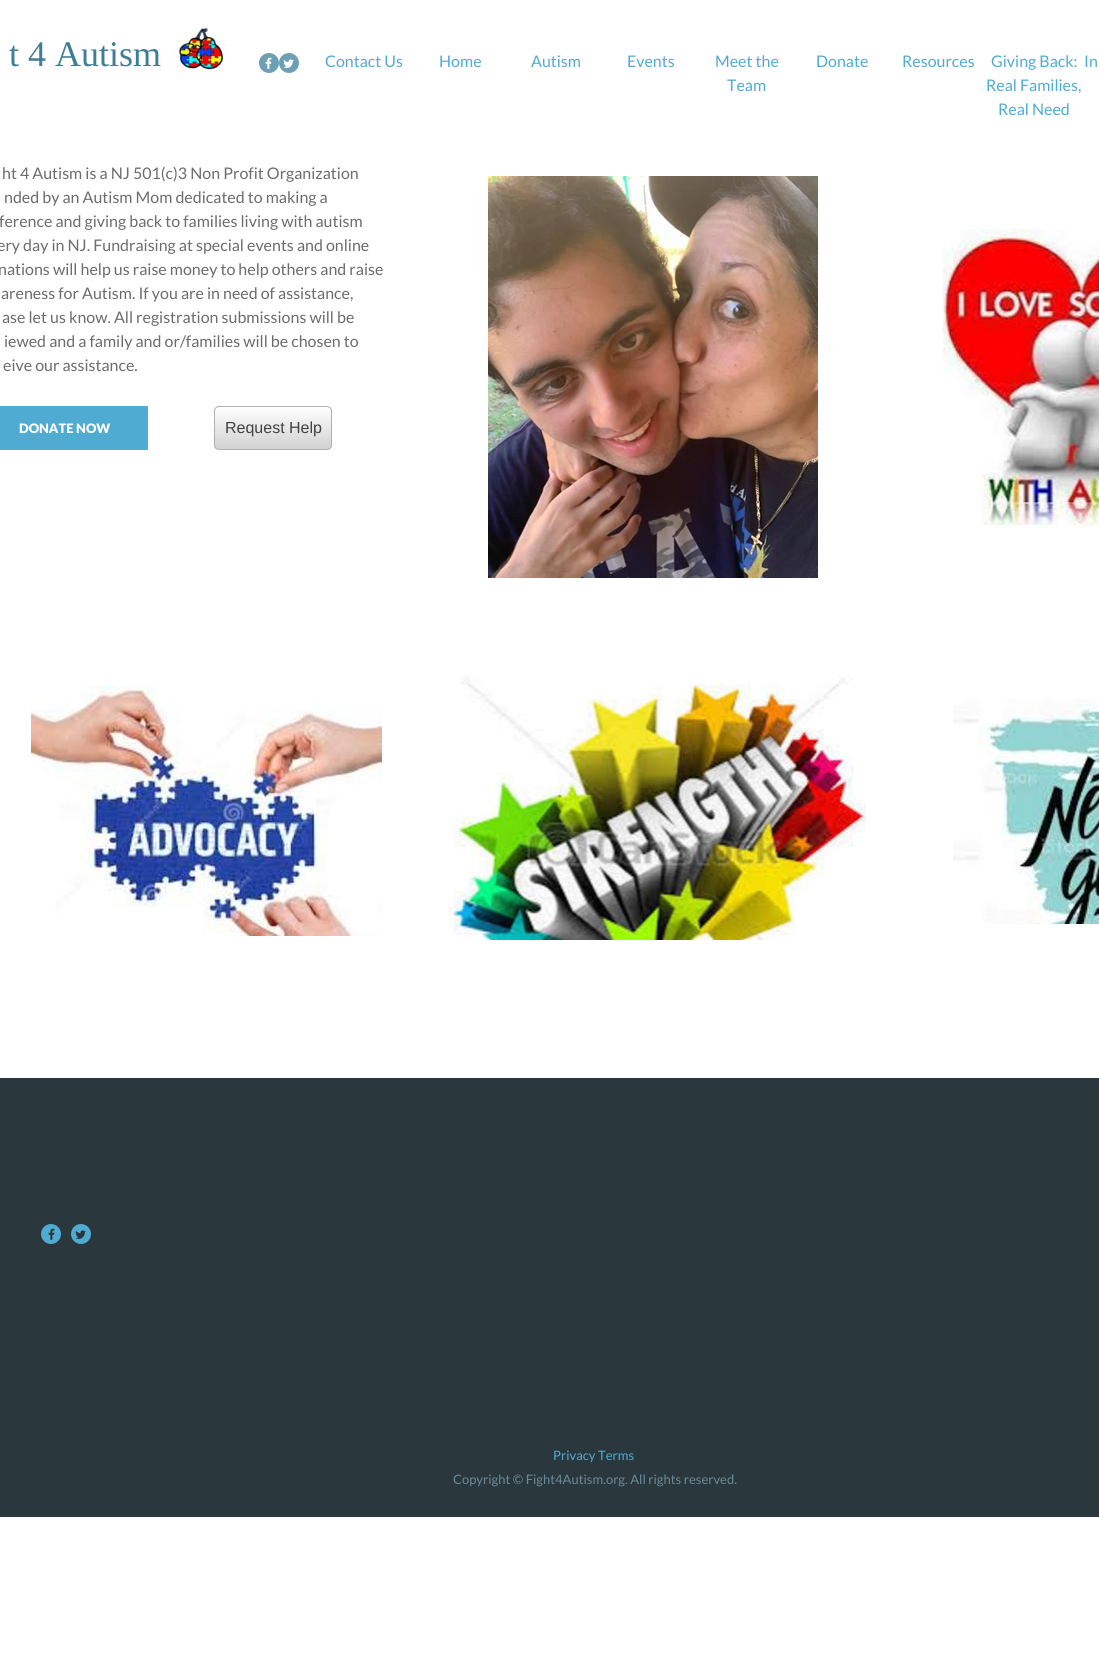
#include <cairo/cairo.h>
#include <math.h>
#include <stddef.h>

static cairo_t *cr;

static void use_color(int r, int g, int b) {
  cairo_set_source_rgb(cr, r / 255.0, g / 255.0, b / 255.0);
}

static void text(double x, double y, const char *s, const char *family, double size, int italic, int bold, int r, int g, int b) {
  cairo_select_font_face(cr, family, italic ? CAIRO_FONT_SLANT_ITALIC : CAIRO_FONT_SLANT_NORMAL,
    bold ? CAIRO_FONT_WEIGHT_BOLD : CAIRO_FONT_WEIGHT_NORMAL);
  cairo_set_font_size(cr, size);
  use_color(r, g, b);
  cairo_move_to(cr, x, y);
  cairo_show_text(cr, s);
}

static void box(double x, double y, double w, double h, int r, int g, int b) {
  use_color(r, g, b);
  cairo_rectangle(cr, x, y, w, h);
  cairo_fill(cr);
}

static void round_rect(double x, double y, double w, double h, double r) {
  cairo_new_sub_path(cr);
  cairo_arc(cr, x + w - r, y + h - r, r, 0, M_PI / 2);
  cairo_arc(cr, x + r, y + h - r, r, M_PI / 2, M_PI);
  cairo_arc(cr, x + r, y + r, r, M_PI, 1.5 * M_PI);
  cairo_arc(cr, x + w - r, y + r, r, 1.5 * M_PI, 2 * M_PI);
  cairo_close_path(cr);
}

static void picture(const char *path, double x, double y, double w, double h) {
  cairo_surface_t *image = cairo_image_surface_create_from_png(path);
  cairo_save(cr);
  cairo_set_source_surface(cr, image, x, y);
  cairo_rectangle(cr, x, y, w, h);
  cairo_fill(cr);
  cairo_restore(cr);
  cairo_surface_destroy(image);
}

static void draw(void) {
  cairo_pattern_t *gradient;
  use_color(255, 255, 255);
  cairo_paint(cr);
  picture("img_01.png", 176, 25, 50, 45);
  use_color(109, 159, 181);
  cairo_arc(cr, 269, 63, 10, 0, 2 * M_PI);
  cairo_fill(cr);
  picture("img_02.png", 265, 57, 7, 12);
  cairo_arc(cr, 289, 63, 10, 0, 2 * M_PI);
  cairo_fill(cr);
  picture("img_03.png", 283, 59, 11, 9);
  picture("img_04.png", 488, 176, 330, 402);
  picture("img_05.png", 943, 229, 156, 299);
  box(0, 406, 148, 44, 80, 171, 210);
  cairo_save(cr);
  round_rect(214, 406, 118, 44, 5);
  cairo_clip(cr);
  gradient = cairo_pattern_create_linear(273, 407, 273, 449);
  cairo_pattern_add_color_stop_rgba(gradient, 0, 1, 1, 1, 1);
  cairo_pattern_add_color_stop_rgba(gradient, 1, 0.82, 0.82, 0.82, 1);
  cairo_set_source(cr, gradient);
  cairo_pattern_destroy(gradient);
  cairo_rectangle(cr, 214, 407, 118, 42);
  cairo_fill(cr);
  cairo_restore(cr);
  round_rect(214.5, 406.5, 117, 43, 4.5);
  use_color(175, 175, 175);
  cairo_set_line_width(cr, 1);
  cairo_stroke(cr);
  picture("img_06.png", 31, 685, 351, 251);
  picture("img_07.png", 449, 674, 417, 266);
  picture("img_08.png", 953, 699, 146, 225);
  box(0, 1078, 1099, 439, 42, 55, 61);
  use_color(80, 171, 210);
  cairo_arc(cr, 51, 1234, 10, 0, 2 * M_PI);
  cairo_fill(cr);
  picture("img_09.png", 48, 1228, 7, 12);
  cairo_arc(cr, 81, 1234, 10, 0, 2 * M_PI);
  cairo_fill(cr);
  picture("img_10.png", 75, 1230, 11, 9);
  text(9, 66, "t 4 Autism", "Liberation Serif", 36, 0, 0, 62, 126, 150);
  text(325, 67, "Contact Us", "Lato", 16, 0, 0, 80, 171, 210);
  text(439, 67, "Home", "Lato", 16, 0, 0, 80, 171, 210);
  text(531, 67, "Autism", "Lato", 16, 0, 0, 80, 171, 210);
  text(627, 67, "Events", "Lato", 16, 0, 0, 80, 171, 210);
  text(715, 67, "Meet the", "Lato", 16, 0, 0, 80, 171, 210);
  text(727, 91, "Team", "Lato", 16, 0, 0, 80, 171, 210);
  text(816, 67, "Donate", "Lato", 16, 0, 0, 80, 171, 210);
  text(902, 67, "Resources", "Lato", 16, 0, 0, 80, 171, 210);
  text(991, 67, "Giving Back:", "Lato", 16, 0, 0, 80, 171, 210);
  text(986, 91, "Real Families,", "Lato", 16, 0, 0, 80, 171, 210);
  text(998, 115, "Real Need", "Lato", 16, 0, 0, 80, 171, 210);
  text(1084, 67, "In", "Lato", 16, 0, 0, 80, 171, 210);
  text(2, 179, "ht 4 Autism is a NJ 501(c)3 Non Profit Organization", "Lato", 16, 0, 0, 108, 108, 108);
  text(4, 203, "nded by an Autism Mom dedicated to making a", "Lato", 16, 0, 0, 108, 108, 108);
  text(-1, 227, "ference and giving back to families living with autism", "Lato", 16, 0, 0, 108, 108, 108);
  text(-3, 251, "ery day in NJ. Fundraising at special events and online", "Lato", 16, 0, 0, 108, 108, 108);
  text(-2, 275, "nations will help us raise money to help others and raise", "Lato", 16, 0, 0, 108, 108, 108);
  text(1, 299, "areness for Autism. If you are in need of assistance,", "Lato", 16, 0, 0, 108, 108, 108);
  text(2, 323, "ase let us know. All registration submissions will be", "Lato", 16, 0, 0, 108, 108, 108);
  text(4, 347, "iewed and a family and or/families will be chosen to", "Lato", 16, 0, 0, 108, 108, 108);
  text(3, 371, "eive our assistance.", "Lato", 16, 0, 0, 108, 108, 108);
  text(19, 433, "DONATE NOW", "Lato Black", 13, 0, 0, 255, 255, 255);
  text(225, 433, "Request Help", "Liberation Sans", 16, 0, 0, 65, 65, 65);
  text(553, 1460, "Privacy Terms", "Lato", 13, 0, 0, 80, 171, 210);
  text(453, 1484, "Copyright © Fight4Autism.org. All rights reserved.", "Lato", 13, 0, 0, 107, 138, 153);
}

int main(void) {
  cairo_surface_t *surface = cairo_image_surface_create(CAIRO_FORMAT_RGB24, 1099, 1653);
  cr = cairo_create(surface);
  cairo_font_options_t *options = cairo_font_options_create();
  cairo_font_options_set_hint_metrics(options, CAIRO_HINT_METRICS_OFF);
  cairo_font_options_set_hint_style(options, CAIRO_HINT_STYLE_NONE);
  cairo_set_font_options(cr, options);
  cairo_set_miter_limit(cr, 4);
  draw();
  cairo_surface_write_to_png(surface, "out.png");
  cairo_font_options_destroy(options);
  cairo_destroy(cr);
  cairo_surface_destroy(surface);
  return 0;
}
